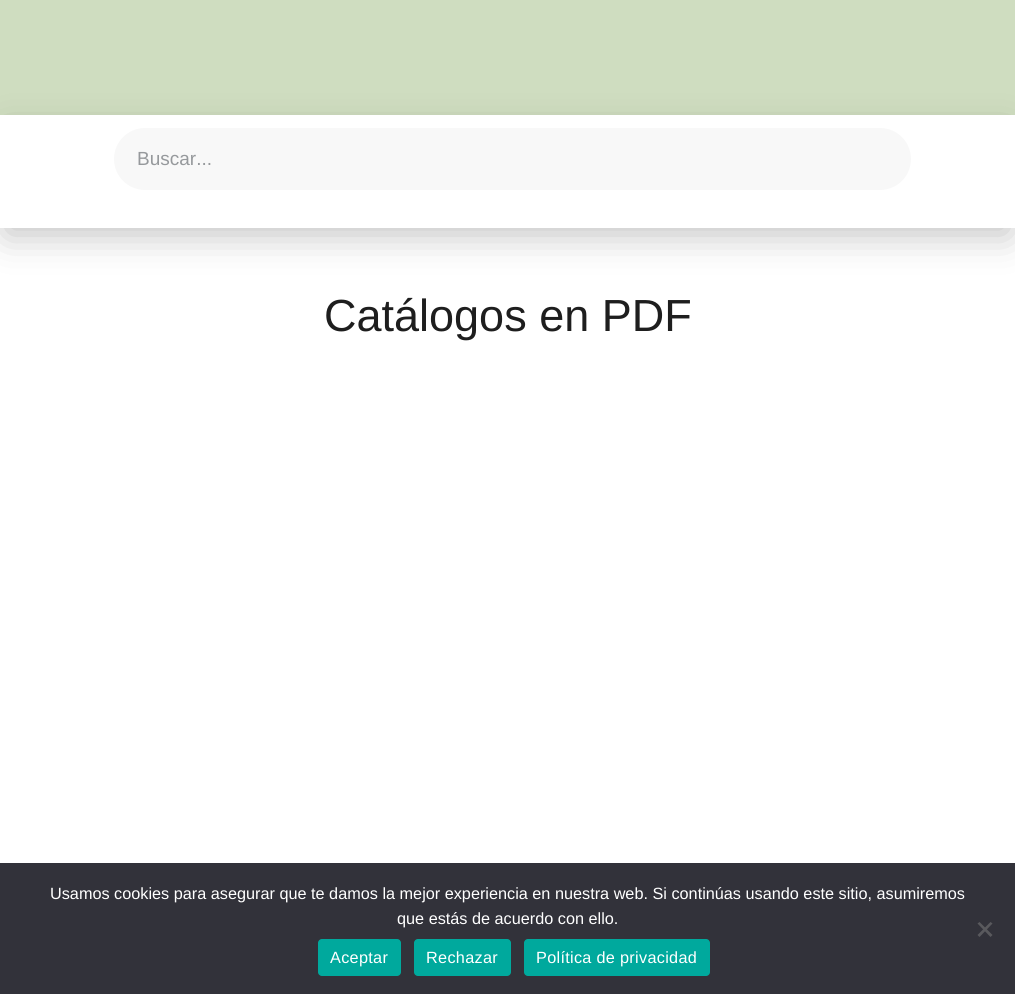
#include <cairo/cairo.h>
#include <math.h>
#include <stddef.h>

static cairo_t *cr;

static void use_color(int r, int g, int b) {
  cairo_set_source_rgb(cr, r / 255.0, g / 255.0, b / 255.0);
}

static void text(double x, double y, const char *s, const char *family, double size, int italic, int bold, int r, int g, int b) {
  cairo_select_font_face(cr, family, italic ? CAIRO_FONT_SLANT_ITALIC : CAIRO_FONT_SLANT_NORMAL,
    bold ? CAIRO_FONT_WEIGHT_BOLD : CAIRO_FONT_WEIGHT_NORMAL);
  cairo_set_font_size(cr, size);
  use_color(r, g, b);
  cairo_move_to(cr, x, y);
  cairo_show_text(cr, s);
}

static void spaced_text(double x, double y, const char *s, double letter, double word) {
  cairo_move_to(cr, x, y);
  while (*s) {
    char ch[5] = {0};
    int n = 0;
    do ch[n++] = *s++; while ((*s & 0xC0) == 0x80);
    cairo_show_text(cr, ch);
    cairo_rel_move_to(cr, letter + word * (*ch == ' '), 0);
  }
}

static void box(double x, double y, double w, double h, int r, int g, int b) {
  use_color(r, g, b);
  cairo_rectangle(cr, x, y, w, h);
  cairo_fill(cr);
}

static void round_rect(double x, double y, double w, double h, double r) {
  cairo_new_sub_path(cr);
  cairo_arc(cr, x + w - r, y + h - r, r, 0, M_PI / 2);
  cairo_arc(cr, x + r, y + h - r, r, M_PI / 2, M_PI);
  cairo_arc(cr, x + r, y + r, r, M_PI, 1.5 * M_PI);
  cairo_arc(cr, x + w - r, y + r, r, 1.5 * M_PI, 2 * M_PI);
  cairo_close_path(cr);
}

static void shadow(double x, double y, double w, double h, double r, double blur, double alpha) {
  cairo_push_group_with_content(cr, CAIRO_CONTENT_ALPHA);
  cairo_set_operator(cr, CAIRO_OPERATOR_SOURCE);
  for (int i = 15; i >= -15 && fmin(w, h) + blur * i / 3 > 0; i -= 2) {
    double e = blur * i / 6;
    cairo_set_source_rgba(cr, 0, 0, 0, alpha * erfc((i - 1) / 8.5) / 2);
    round_rect(x - e, y - e, w + 2 * e, h + 2 * e, fmax(0, fmin(r + e + blur * .6, fmin(w, h) / 2 + e)));
    cairo_fill(cr);
  }
  cairo_pattern_t *soft = cairo_pop_group(cr);
  cairo_mask(cr, soft);
  cairo_pattern_destroy(soft);
}

static void draw(void) {
  use_color(255, 255, 255);
  cairo_paint(cr);
  box(0, 0, 1015, 115, 207, 221, 192);
  use_color(0, 0, 0);
  shadow(6, 134, 1003, 100, 0, 19, 0.25);
  box(0, 115, 1015, 113, 255, 255, 255);
  use_color(248, 248, 248);
  round_rect(114, 128, 797, 62, 31);
  cairo_fill(cr);
  box(0, 863, 1015, 131, 50, 50, 58);
  use_color(89, 89, 93);
  cairo_new_path(cr);
  cairo_move_to(cr, 990.5, 922);
  cairo_line_to(cr, 992.5, 923.5);
  cairo_line_to(cr, 979.5, 937);
  cairo_line_to(cr, 977.5, 935);
  cairo_close_path(cr);
  cairo_fill(cr);
  cairo_new_path(cr);
  cairo_move_to(cr, 977.5, 923.5);
  cairo_line_to(cr, 979.5, 922);
  cairo_line_to(cr, 992.5, 935);
  cairo_line_to(cr, 990.5, 937);
  cairo_close_path(cr);
  cairo_fill(cr);
  use_color(0, 169, 157);
  round_rect(318, 939, 83, 37, 4);
  cairo_fill(cr);
  round_rect(414, 939, 97, 37, 4);
  cairo_fill(cr);
  round_rect(524, 939, 186, 37, 4);
  cairo_fill(cr);
  text(137, 165, "Buscar...", "Liberation Sans", 19, 0, 0, 150, 153, 156);
  text(324, 331, "Catálogos en PDF", "Liberation Sans", 45, 0, 0, 30, 30, 30);
  text(50, 899, "Usamos cookies para asegurar que te damos la mejor experiencia en nuestra web. Si continúas usando este sitio, asumiremos", "Liberation Sans", 16.25, 0, 0, 255, 255, 255);
  text(397, 924, "que estás de acuerdo con ello.", "Liberation Sans", 16.25, 0, 0, 255, 255, 255);
  spaced_text(330, 963, "Aceptar", 0.3, 0);
  spaced_text(426, 963, "Rechazar", 0.3, 0);
  spaced_text(536, 963, "Política de privacidad", 0.3, 0);
}

int main(void) {
  cairo_surface_t *surface = cairo_image_surface_create(CAIRO_FORMAT_RGB24, 1015, 994);
  cr = cairo_create(surface);
  cairo_font_options_t *options = cairo_font_options_create();
  cairo_font_options_set_hint_metrics(options, CAIRO_HINT_METRICS_OFF);
  cairo_font_options_set_hint_style(options, CAIRO_HINT_STYLE_NONE);
  cairo_set_font_options(cr, options);
  cairo_set_miter_limit(cr, 4);
  draw();
  cairo_surface_write_to_png(surface, "out.png");
  cairo_font_options_destroy(options);
  cairo_destroy(cr);
  cairo_surface_destroy(surface);
  return 0;
}
